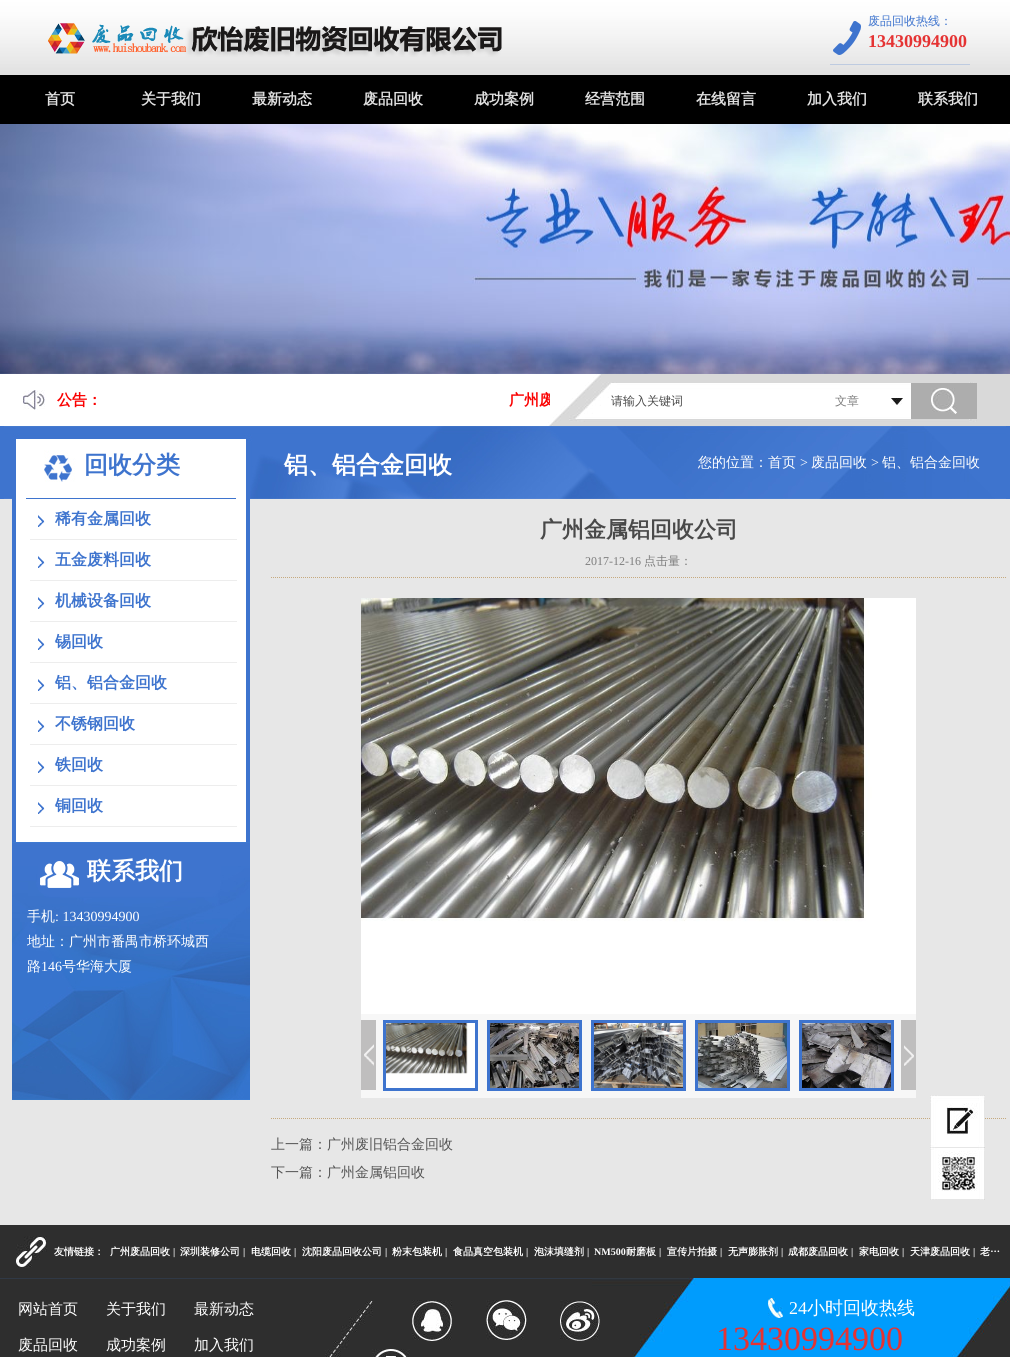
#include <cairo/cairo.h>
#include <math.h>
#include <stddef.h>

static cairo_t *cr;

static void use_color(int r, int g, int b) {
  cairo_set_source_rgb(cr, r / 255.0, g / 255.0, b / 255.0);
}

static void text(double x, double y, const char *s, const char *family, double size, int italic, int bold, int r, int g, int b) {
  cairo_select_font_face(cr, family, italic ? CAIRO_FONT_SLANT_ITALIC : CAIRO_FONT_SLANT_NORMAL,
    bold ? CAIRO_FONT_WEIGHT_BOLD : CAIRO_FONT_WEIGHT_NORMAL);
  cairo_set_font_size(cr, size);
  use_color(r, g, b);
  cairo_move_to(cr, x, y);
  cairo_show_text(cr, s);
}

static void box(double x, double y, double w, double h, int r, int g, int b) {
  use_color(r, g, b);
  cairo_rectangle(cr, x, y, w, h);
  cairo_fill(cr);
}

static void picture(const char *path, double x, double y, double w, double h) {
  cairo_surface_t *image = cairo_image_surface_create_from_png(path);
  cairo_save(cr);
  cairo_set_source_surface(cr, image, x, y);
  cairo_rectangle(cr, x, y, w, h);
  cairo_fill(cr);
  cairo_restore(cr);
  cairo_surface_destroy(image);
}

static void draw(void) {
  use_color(231, 231, 231);
  cairo_paint(cr);
  picture("img_01.png", 0, 0, 1010, 75);
  picture("img_02.png", 48, 23, 454, 34);
  picture("img_03.png", 833, 21, 28, 34);
  box(830, 64, 140, 1, 190, 203, 224);
  box(0, 75, 1010, 49, 0, 0, 0);
  picture("img_04.png", 0, 124, 1010, 250);
  picture("img_05.png", 0, 374, 1010, 52);
  picture("img_06.png", 23, 390, 22, 20);
  box(611, 383, 6, 7, 255, 255, 255);
  picture("img_07.png", 891, 398, 12, 7);
  box(911, 383, 66, 36, 173, 173, 173);
  picture("img_08.png", 931, 388, 26, 26);
  box(0, 426, 1010, 73, 62, 116, 206);
  picture("img_09.png", 4, 426, 1002, 73);
  picture("img_10.png", 12, 499, 238, 343);
  box(30, 539, 207, 1, 237, 237, 237);
  picture("img_11.png", 38, 515, 7, 12);
  box(30, 580, 207, 1, 237, 237, 237);
  picture("img_11.png", 38, 556, 7, 12);
  box(30, 621, 207, 1, 237, 237, 237);
  picture("img_11.png", 38, 597, 7, 12);
  box(30, 662, 207, 1, 237, 237, 237);
  picture("img_11.png", 38, 638, 7, 12);
  box(30, 703, 207, 1, 237, 237, 237);
  picture("img_11.png", 38, 679, 7, 12);
  box(30, 744, 207, 1, 237, 237, 237);
  picture("img_11.png", 38, 720, 7, 12);
  box(30, 785, 207, 1, 237, 237, 237);
  picture("img_11.png", 38, 761, 7, 12);
  box(30, 826, 207, 1, 237, 237, 237);
  picture("img_11.png", 38, 802, 7, 12);
  picture("img_12.png", 12, 842, 238, 258);
  picture("img_13.png", 40, 861, 39, 27);
  cairo_new_path(cr);
  cairo_move_to(cr, 271, 577.5);
  cairo_line_to(cr, 1006, 577.5);
  use_color(198, 170, 127);
  cairo_set_line_width(cr, 1);
  cairo_set_dash(cr, (double[]){1, 1}, 2, 0);
  cairo_stroke(cr);
  box(361, 1014, 555, 84, 247, 247, 247);
  picture("img_14.png", 361, 598, 555, 416);
  box(361, 1020, 15, 70, 191, 190, 190);
  picture("img_15.png", 364, 1044, 10, 22);
  cairo_rectangle(cr, 384.5, 1021.5, 92, 68);
  use_color(62, 116, 206);
  cairo_set_line_width(cr, 3);
  cairo_set_dash(cr, NULL, 0, 0);
  cairo_stroke(cr);
  picture("img_16.png", 386, 1023, 89, 65);
  cairo_rectangle(cr, 488.5, 1021.5, 92, 68);
  cairo_stroke(cr);
  picture("img_17.png", 490, 1023, 89, 65);
  cairo_rectangle(cr, 592.5, 1021.5, 92, 68);
  cairo_stroke(cr);
  picture("img_18.png", 594, 1023, 89, 65);
  cairo_rectangle(cr, 696.5, 1021.5, 92, 68);
  cairo_stroke(cr);
  picture("img_19.png", 698, 1023, 89, 65);
  cairo_rectangle(cr, 800.5, 1021.5, 92, 68);
  cairo_stroke(cr);
  picture("img_20.png", 802, 1023, 89, 65);
  box(901, 1020, 15, 70, 191, 190, 190);
  picture("img_21.png", 904, 1045, 10, 21);
  cairo_new_path(cr);
  cairo_move_to(cr, 271, 1118.5);
  cairo_line_to(cr, 1006, 1118.5);
  use_color(198, 170, 127);
  cairo_set_line_width(cr, 1);
  cairo_set_dash(cr, (double[]){1, 1}, 2, 0);
  cairo_stroke(cr);
  picture("img_22.png", 930, 1095, 55, 53);
  picture("img_23.png", 930, 1148, 55, 52);
  box(0, 1225, 1010, 53, 46, 46, 46);
  box(0, 1278, 592, 1, 48, 57, 70);
  picture("img_24.png", 16, 1236, 31, 32);
  box(0, 1279, 592, 78, 46, 46, 46);
  picture("img_25.png", 325, 1301, 48, 56);
  picture("img_26.png", 372, 1349, 38, 8);
  picture("img_27.png", 412, 1300, 40, 41);
  picture("img_28.png", 486, 1300, 41, 40);
  picture("img_30.png", 592, 1278, 418, 79);
  picture("img_29.png", 560, 1300, 40, 41);
  picture("img_31.png", 768, 1298, 15, 20);
  text(868, 25, "废品回收热线：", "WenQuanYi Zen Hei Medium", 12, 0, 0, 62, 116, 206);
  text(868, 47, "13430994900", "Liberation Serif", 18, 0, 1, 229, 51, 51);
  text(45, 104, "首页", "WenQuanYi Zen Hei", 15, 0, 1, 224, 224, 224);
  text(141, 104, "关于我们", "WenQuanYi Zen Hei", 15, 0, 1, 224, 224, 224);
  text(252, 104, "最新动态", "WenQuanYi Zen Hei", 15, 0, 1, 224, 224, 224);
  text(363, 104, "废品回收", "WenQuanYi Zen Hei", 15, 0, 1, 224, 224, 224);
  text(474, 104, "成功案例", "WenQuanYi Zen Hei", 15, 0, 1, 224, 224, 224);
  text(585, 104, "经营范围", "WenQuanYi Zen Hei", 15, 0, 1, 224, 224, 224);
  text(696, 104, "在线留言", "WenQuanYi Zen Hei", 15, 0, 1, 224, 224, 224);
  text(807, 104, "加入我们", "WenQuanYi Zen Hei", 15, 0, 1, 224, 224, 224);
  text(918, 104, "联系我们", "WenQuanYi Zen Hei", 15, 0, 1, 224, 224, 224);
  text(57, 405, "公告：", "WenQuanYi Zen Hei", 15, 0, 1, 250, 0, 0);
  cairo_save(cr);
  cairo_rectangle(cr, 102, 374, 448, 52);
  cairo_clip(cr);
  text(509, 405, "广州废", "WenQuanYi Zen Hei", 15, 0, 1, 250, 0, 0);
  cairo_restore(cr);
  text(611, 405, "请输入关键词", "WenQuanYi Zen Hei Medium", 12, 0, 0, 73, 73, 73);
  text(835, 405, "文章", "WenQuanYi Zen Hei Medium", 12, 0, 0, 125, 125, 125);
  text(84, 473, "回收分类", "WenQuanYi Zen Hei", 24, 0, 1, 62, 116, 206);
  text(284, 473, "铝、铝合金回收", "WenQuanYi Zen Hei", 24, 0, 1, 255, 255, 255);
  text(698, 467, "您的位置：首页", "WenQuanYi Zen Hei Medium", 14, 0, 0, 255, 255, 255);
  text(800, 467, ">", "Liberation Serif", 14, 0, 0, 255, 255, 255);
  text(811, 467, "废品回收", "WenQuanYi Zen Hei Medium", 14, 0, 0, 255, 255, 255);
  text(871, 467, ">", "Liberation Serif", 14, 0, 0, 255, 255, 255);
  text(882, 467, "铝、铝合金回收", "WenQuanYi Zen Hei Medium", 14, 0, 0, 255, 255, 255);
  text(55, 524, "稀有金属回收", "WenQuanYi Zen Hei", 16, 0, 1, 62, 116, 206);
  text(55, 565, "五金废料回收", "WenQuanYi Zen Hei", 16, 0, 1, 62, 116, 206);
  text(55, 606, "机械设备回收", "WenQuanYi Zen Hei", 16, 0, 1, 62, 116, 206);
  text(55, 647, "锡回收", "WenQuanYi Zen Hei", 16, 0, 1, 62, 116, 206);
  text(55, 688, "铝、铝合金回收", "WenQuanYi Zen Hei", 16, 0, 1, 62, 116, 206);
  text(55, 729, "不锈钢回收", "WenQuanYi Zen Hei", 16, 0, 1, 62, 116, 206);
  text(55, 770, "铁回收", "WenQuanYi Zen Hei", 16, 0, 1, 62, 116, 206);
  text(55, 811, "铜回收", "WenQuanYi Zen Hei", 16, 0, 1, 62, 116, 206);
  text(87, 879, "联系我们", "WenQuanYi Zen Hei", 24, 0, 1, 255, 255, 255);
  text(27, 921, "手机", "WenQuanYi Zen Hei Medium", 14, 0, 0, 255, 255, 255);
  text(55, 921, ": 13430994900", "Liberation Serif", 14, 0, 0, 255, 255, 255);
  text(27, 946, "地址：广州市番禺市桥环城西", "WenQuanYi Zen Hei Medium", 14, 0, 0, 255, 255, 255);
  text(27, 971, "路", "WenQuanYi Zen Hei Medium", 14, 0, 0, 255, 255, 255);
  text(41, 971, "146", "Liberation Serif", 14, 0, 0, 255, 255, 255);
  text(62, 971, "号华海大厦", "WenQuanYi Zen Hei Medium", 14, 0, 0, 255, 255, 255);
  text(540, 537, "广州金属铝回收公司", "WenQuanYi Zen Hei", 22, 0, 1, 73, 73, 73);
  text(585, 565, "2017-12-16", "Liberation Serif", 12, 0, 0, 125, 125, 125);
  text(644, 565, "点击量：", "WenQuanYi Zen Hei Medium", 12, 0, 0, 125, 125, 125);
  text(271, 1149, "上一篇：广州废旧铝合金回收", "WenQuanYi Zen Hei Medium", 14, 0, 0, 85, 85, 85);
  text(271, 1177, "下一篇：广州金属铝回收", "WenQuanYi Zen Hei Medium", 14, 0, 0, 85, 85, 85);
  text(54, 1255, "友情链接：", "WenQuanYi Zen Hei", 10, 0, 1, 255, 255, 255);
  text(110, 1255, "广州废品回收", "WenQuanYi Zen Hei", 10, 0, 1, 255, 255, 255);
  text(173, 1255, "|", "Liberation Serif", 10, 0, 1, 255, 255, 255);
  text(180, 1255, "深圳装修公司", "WenQuanYi Zen Hei", 10, 0, 1, 255, 255, 255);
  text(243, 1255, "|", "Liberation Serif", 10, 0, 1, 255, 255, 255);
  text(251, 1255, "电缆回收", "WenQuanYi Zen Hei", 10, 0, 1, 255, 255, 255);
  text(294, 1255, "|", "Liberation Serif", 10, 0, 1, 255, 255, 255);
  text(302, 1255, "沈阳废品回收公司", "WenQuanYi Zen Hei", 10, 0, 1, 255, 255, 255);
  text(385, 1255, "|", "Liberation Serif", 10, 0, 1, 255, 255, 255);
  text(392, 1255, "粉末包装机", "WenQuanYi Zen Hei", 10, 0, 1, 255, 255, 255);
  text(445, 1255, "|", "Liberation Serif", 10, 0, 1, 255, 255, 255);
  text(453, 1255, "食品真空包装机", "WenQuanYi Zen Hei", 10, 0, 1, 255, 255, 255);
  text(526, 1255, "|", "Liberation Serif", 10, 0, 1, 255, 255, 255);
  text(534, 1255, "泡沫填缝剂", "WenQuanYi Zen Hei", 10, 0, 1, 255, 255, 255);
  text(587, 1255, "|", "Liberation Serif", 10, 0, 1, 255, 255, 255);
  text(594, 1255, "NM500", "Liberation Serif", 10, 0, 1, 255, 255, 255);
  text(626, 1255, "耐磨板", "WenQuanYi Zen Hei", 10, 0, 1, 255, 255, 255);
  text(659, 1255, "|", "Liberation Serif", 10, 0, 1, 255, 255, 255);
  text(667, 1255, "宣传片拍摄", "WenQuanYi Zen Hei", 10, 0, 1, 255, 255, 255);
  text(720, 1255, "|", "Liberation Serif", 10, 0, 1, 255, 255, 255);
  text(728, 1255, "无声膨胀剂", "WenQuanYi Zen Hei", 10, 0, 1, 255, 255, 255);
  text(781, 1255, "|", "Liberation Serif", 10, 0, 1, 255, 255, 255);
  text(788, 1255, "成都废品回收", "WenQuanYi Zen Hei", 10, 0, 1, 255, 255, 255);
  text(851, 1255, "|", "Liberation Serif", 10, 0, 1, 255, 255, 255);
  text(859, 1255, "家电回收", "WenQuanYi Zen Hei", 10, 0, 1, 255, 255, 255);
  text(902, 1255, "|", "Liberation Serif", 10, 0, 1, 255, 255, 255);
  text(910, 1255, "天津废品回收", "WenQuanYi Zen Hei", 10, 0, 1, 255, 255, 255);
  text(973, 1255, "|", "Liberation Serif", 10, 0, 1, 255, 255, 255);
  text(980, 1255, "老…", "WenQuanYi Zen Hei", 10, 0, 1, 255, 255, 255);
  text(18, 1314, "网站首页", "WenQuanYi Zen Hei Medium", 15, 0, 0, 255, 255, 255);
  text(106, 1314, "关于我们", "WenQuanYi Zen Hei Medium", 15, 0, 0, 255, 255, 255);
  text(194, 1314, "最新动态", "WenQuanYi Zen Hei Medium", 15, 0, 0, 255, 255, 255);
  text(18, 1350, "废品回收", "WenQuanYi Zen Hei Medium", 15, 0, 0, 255, 255, 255);
  text(106, 1350, "成功案例", "WenQuanYi Zen Hei Medium", 15, 0, 0, 255, 255, 255);
  text(194, 1350, "加入我们", "WenQuanYi Zen Hei Medium", 15, 0, 0, 255, 255, 255);
  text(789, 1314, "24", "Liberation Serif", 18, 0, 0, 255, 255, 255);
  text(807, 1314, "小时回收热线", "WenQuanYi Zen Hei Medium", 18, 0, 0, 255, 255, 255);
  text(716, 1350, "13430994900", "Liberation Serif", 34, 0, 0, 229, 51, 51);
}

int main(void) {
  cairo_surface_t *surface = cairo_image_surface_create(CAIRO_FORMAT_RGB24, 1010, 1357);
  cr = cairo_create(surface);
  cairo_font_options_t *options = cairo_font_options_create();
  cairo_font_options_set_hint_metrics(options, CAIRO_HINT_METRICS_OFF);
  cairo_font_options_set_hint_style(options, CAIRO_HINT_STYLE_NONE);
  cairo_set_font_options(cr, options);
  cairo_set_miter_limit(cr, 4);
  draw();
  cairo_surface_write_to_png(surface, "out.png");
  cairo_font_options_destroy(options);
  cairo_destroy(cr);
  cairo_surface_destroy(surface);
  return 0;
}
